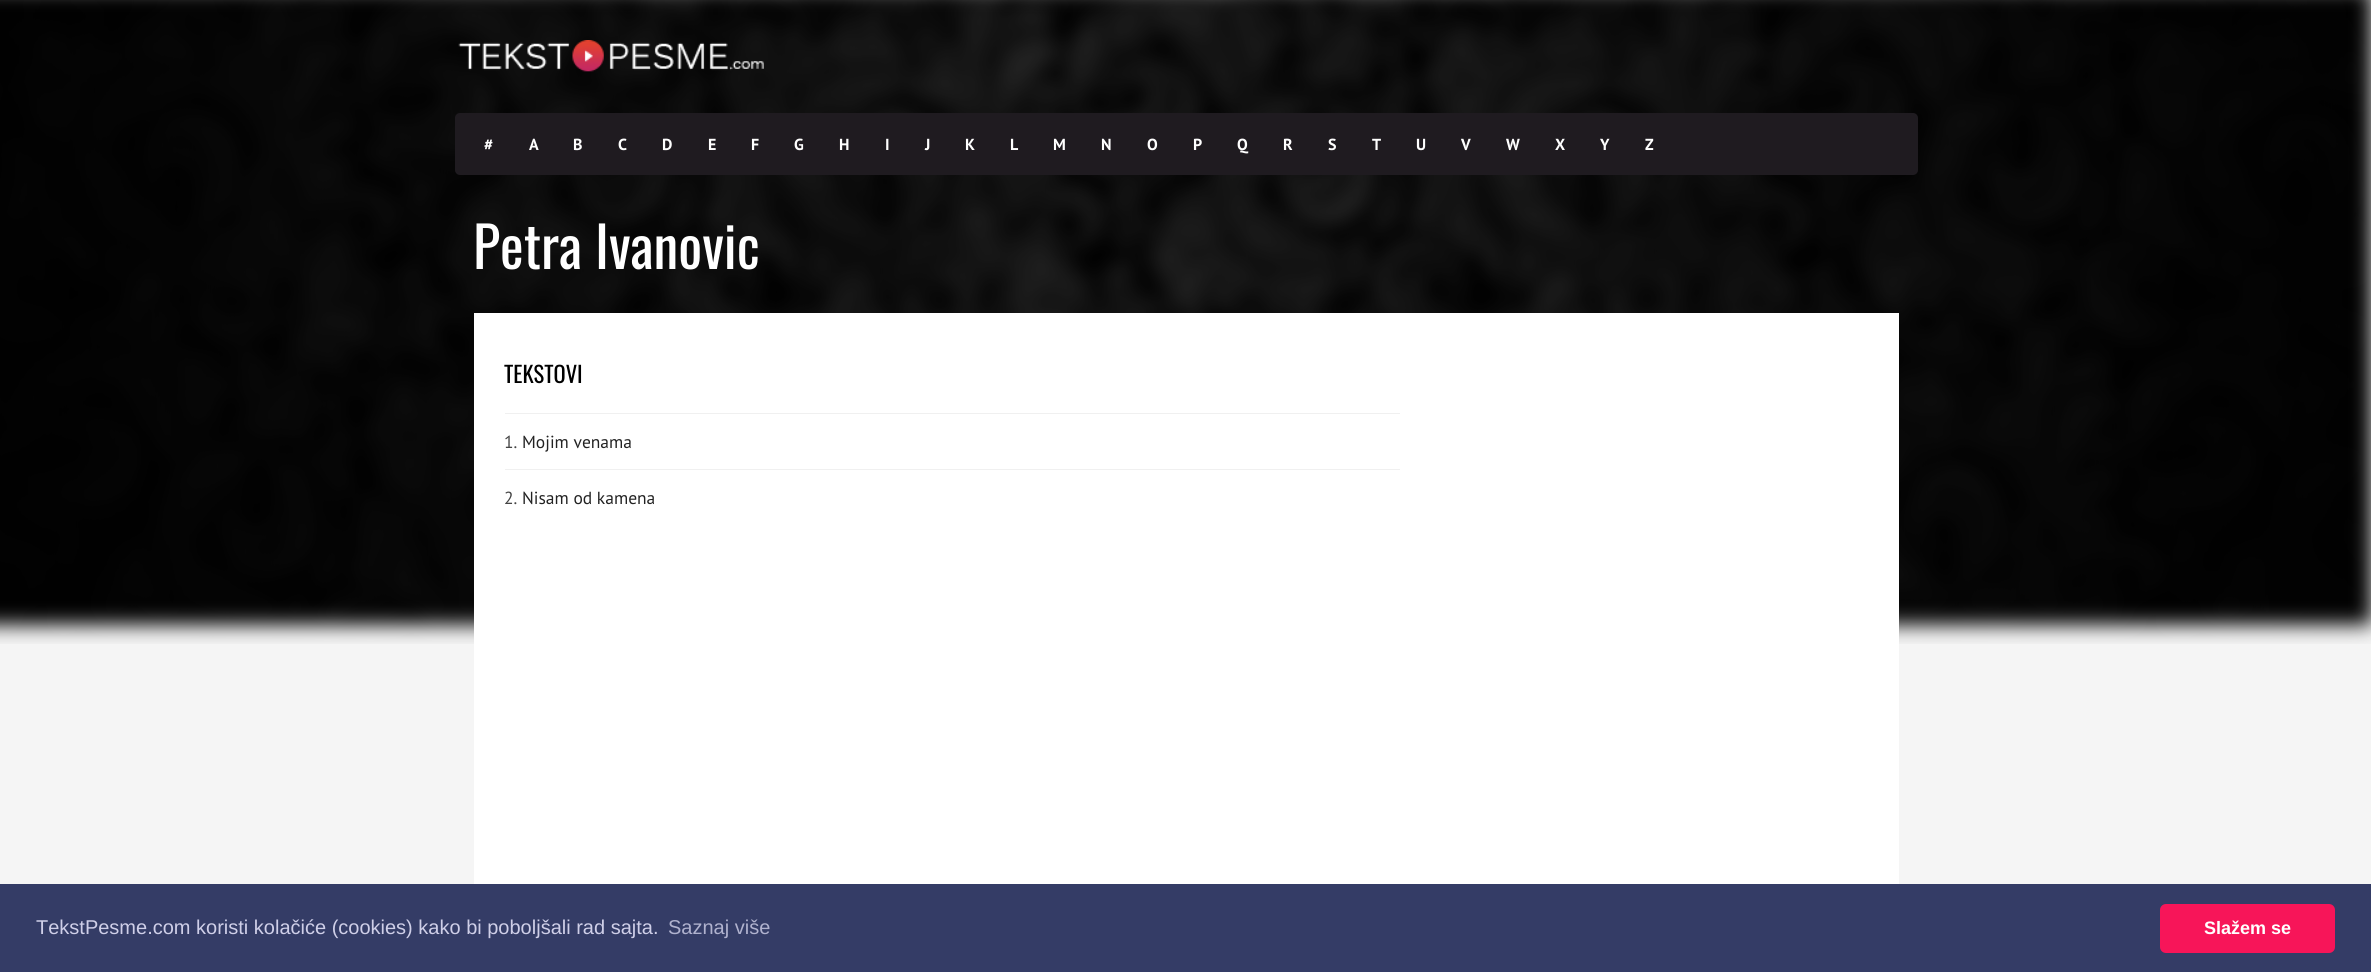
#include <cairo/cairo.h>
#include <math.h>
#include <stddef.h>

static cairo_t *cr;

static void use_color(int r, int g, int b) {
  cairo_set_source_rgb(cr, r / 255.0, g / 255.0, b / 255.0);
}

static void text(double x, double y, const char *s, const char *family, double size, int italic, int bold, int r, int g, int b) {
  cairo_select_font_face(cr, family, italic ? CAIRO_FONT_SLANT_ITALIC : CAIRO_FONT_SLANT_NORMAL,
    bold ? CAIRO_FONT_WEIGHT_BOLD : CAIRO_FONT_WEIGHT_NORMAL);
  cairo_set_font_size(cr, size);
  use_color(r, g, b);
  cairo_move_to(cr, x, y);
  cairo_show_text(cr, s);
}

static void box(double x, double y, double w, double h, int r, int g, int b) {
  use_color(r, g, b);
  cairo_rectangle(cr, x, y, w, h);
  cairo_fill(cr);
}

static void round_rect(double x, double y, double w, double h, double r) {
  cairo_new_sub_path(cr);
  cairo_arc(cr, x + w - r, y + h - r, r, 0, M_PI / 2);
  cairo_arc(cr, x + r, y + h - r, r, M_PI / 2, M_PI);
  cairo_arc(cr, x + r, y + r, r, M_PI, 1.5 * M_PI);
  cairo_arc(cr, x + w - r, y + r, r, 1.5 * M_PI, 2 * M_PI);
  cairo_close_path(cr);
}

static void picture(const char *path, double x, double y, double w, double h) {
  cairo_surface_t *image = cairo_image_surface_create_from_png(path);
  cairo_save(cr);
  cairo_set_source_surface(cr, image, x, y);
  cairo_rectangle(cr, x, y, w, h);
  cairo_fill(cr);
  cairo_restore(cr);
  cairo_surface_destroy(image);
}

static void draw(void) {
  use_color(245, 245, 245);
  cairo_paint(cr);
  picture("img_01.png", 0, 0, 2371, 644);
  picture("img_02.png", 458, 40, 306, 32);
  use_color(31, 27, 32);
  round_rect(455, 113, 1463, 62, 5);
  cairo_fill(cr);
  box(474, 313, 1425, 571, 255, 255, 255);
  box(505, 413, 895, 1, 240, 240, 240);
  box(505, 469, 895, 1, 240, 240, 240);
  box(0, 884, 2371, 88, 52, 60, 102);
  use_color(247, 21, 89);
  round_rect(2160, 904, 175, 49, 6);
  cairo_fill(cr);
  text(484, 150, "#", "PT Sans", 16, 0, 1, 255, 255, 255);
  text(529, 150, "A", "PT Sans", 16, 0, 1, 255, 255, 255);
  text(573, 150, "B", "PT Sans", 16, 0, 1, 255, 255, 255);
  text(618, 150, "C", "PT Sans", 16, 0, 1, 255, 255, 255);
  text(662, 150, "D", "PT Sans", 16, 0, 1, 255, 255, 255);
  text(708, 150, "E", "PT Sans", 16, 0, 1, 255, 255, 255);
  text(751, 150, "F", "PT Sans", 16, 0, 1, 255, 255, 255);
  text(794, 150, "G", "PT Sans", 16, 0, 1, 255, 255, 255);
  text(839, 150, "H", "PT Sans", 16, 0, 1, 255, 255, 255);
  text(885, 150, "I", "PT Sans", 16, 0, 1, 255, 255, 255);
  text(925, 150, "J", "PT Sans", 16, 0, 1, 255, 255, 255);
  text(965, 150, "K", "PT Sans", 16, 0, 1, 255, 255, 255);
  text(1010, 150, "L", "PT Sans", 16, 0, 1, 255, 255, 255);
  text(1053, 150, "M", "PT Sans", 16, 0, 1, 255, 255, 255);
  text(1101, 150, "N", "PT Sans", 16, 0, 1, 255, 255, 255);
  text(1147, 150, "O", "PT Sans", 16, 0, 1, 255, 255, 255);
  text(1193, 150, "P", "PT Sans", 16, 0, 1, 255, 255, 255);
  text(1237, 150, "Q", "PT Sans", 16, 0, 1, 255, 255, 255);
  text(1283, 150, "R", "PT Sans", 16, 0, 1, 255, 255, 255);
  text(1328, 150, "S", "PT Sans", 16, 0, 1, 255, 255, 255);
  text(1372, 150, "T", "PT Sans", 16, 0, 1, 255, 255, 255);
  text(1416, 150, "U", "PT Sans", 16, 0, 1, 255, 255, 255);
  text(1461, 150, "V", "PT Sans", 16, 0, 1, 255, 255, 255);
  text(1506, 150, "W", "PT Sans", 16, 0, 1, 255, 255, 255);
  text(1555, 150, "X", "PT Sans", 16, 0, 1, 255, 255, 255);
  text(1600, 150, "Y", "PT Sans", 16, 0, 1, 255, 255, 255);
  text(1645, 150, "Z", "PT Sans", 16, 0, 1, 255, 255, 255);
  text(473, 269, "Petra Ivanovic", "Oswald", 56.25, 0, 0, 255, 255, 255);
  text(504, 383, "TEKSTOVI", "Oswald", 22.5, 0, 0, 0, 0, 0);
  text(504, 448, "1.", "PT Sans", 17.5, 0, 0, 68, 68, 68);
  text(522, 448, "Mojim venama", "PT Sans", 17.5, 0, 0, 34, 34, 34);
  text(504, 504, "2.", "PT Sans", 17.5, 0, 0, 68, 68, 68);
  text(522, 504, "Nisam od kamena", "PT Sans", 17.5, 0, 0, 34, 34, 34);
  text(36, 934, "TekstPesme.com koristi kolačiće (cookies) kako bi poboljšali rad sajta.", "Liberation Sans", 20, 0, 0, 207, 207, 232);
  text(668, 934, "Saznaj više", "Liberation Sans", 20, 0, 0, 176, 178, 206);
  text(2204, 934, "Slažem se", "Liberation Sans", 18, 0, 1, 255, 255, 255);
}

int main(void) {
  cairo_surface_t *surface = cairo_image_surface_create(CAIRO_FORMAT_RGB24, 2371, 972);
  cr = cairo_create(surface);
  cairo_font_options_t *options = cairo_font_options_create();
  cairo_font_options_set_hint_metrics(options, CAIRO_HINT_METRICS_OFF);
  cairo_font_options_set_hint_style(options, CAIRO_HINT_STYLE_NONE);
  cairo_set_font_options(cr, options);
  cairo_set_miter_limit(cr, 4);
  draw();
  cairo_surface_write_to_png(surface, "out.png");
  cairo_font_options_destroy(options);
  cairo_destroy(cr);
  cairo_surface_destroy(surface);
  return 0;
}
